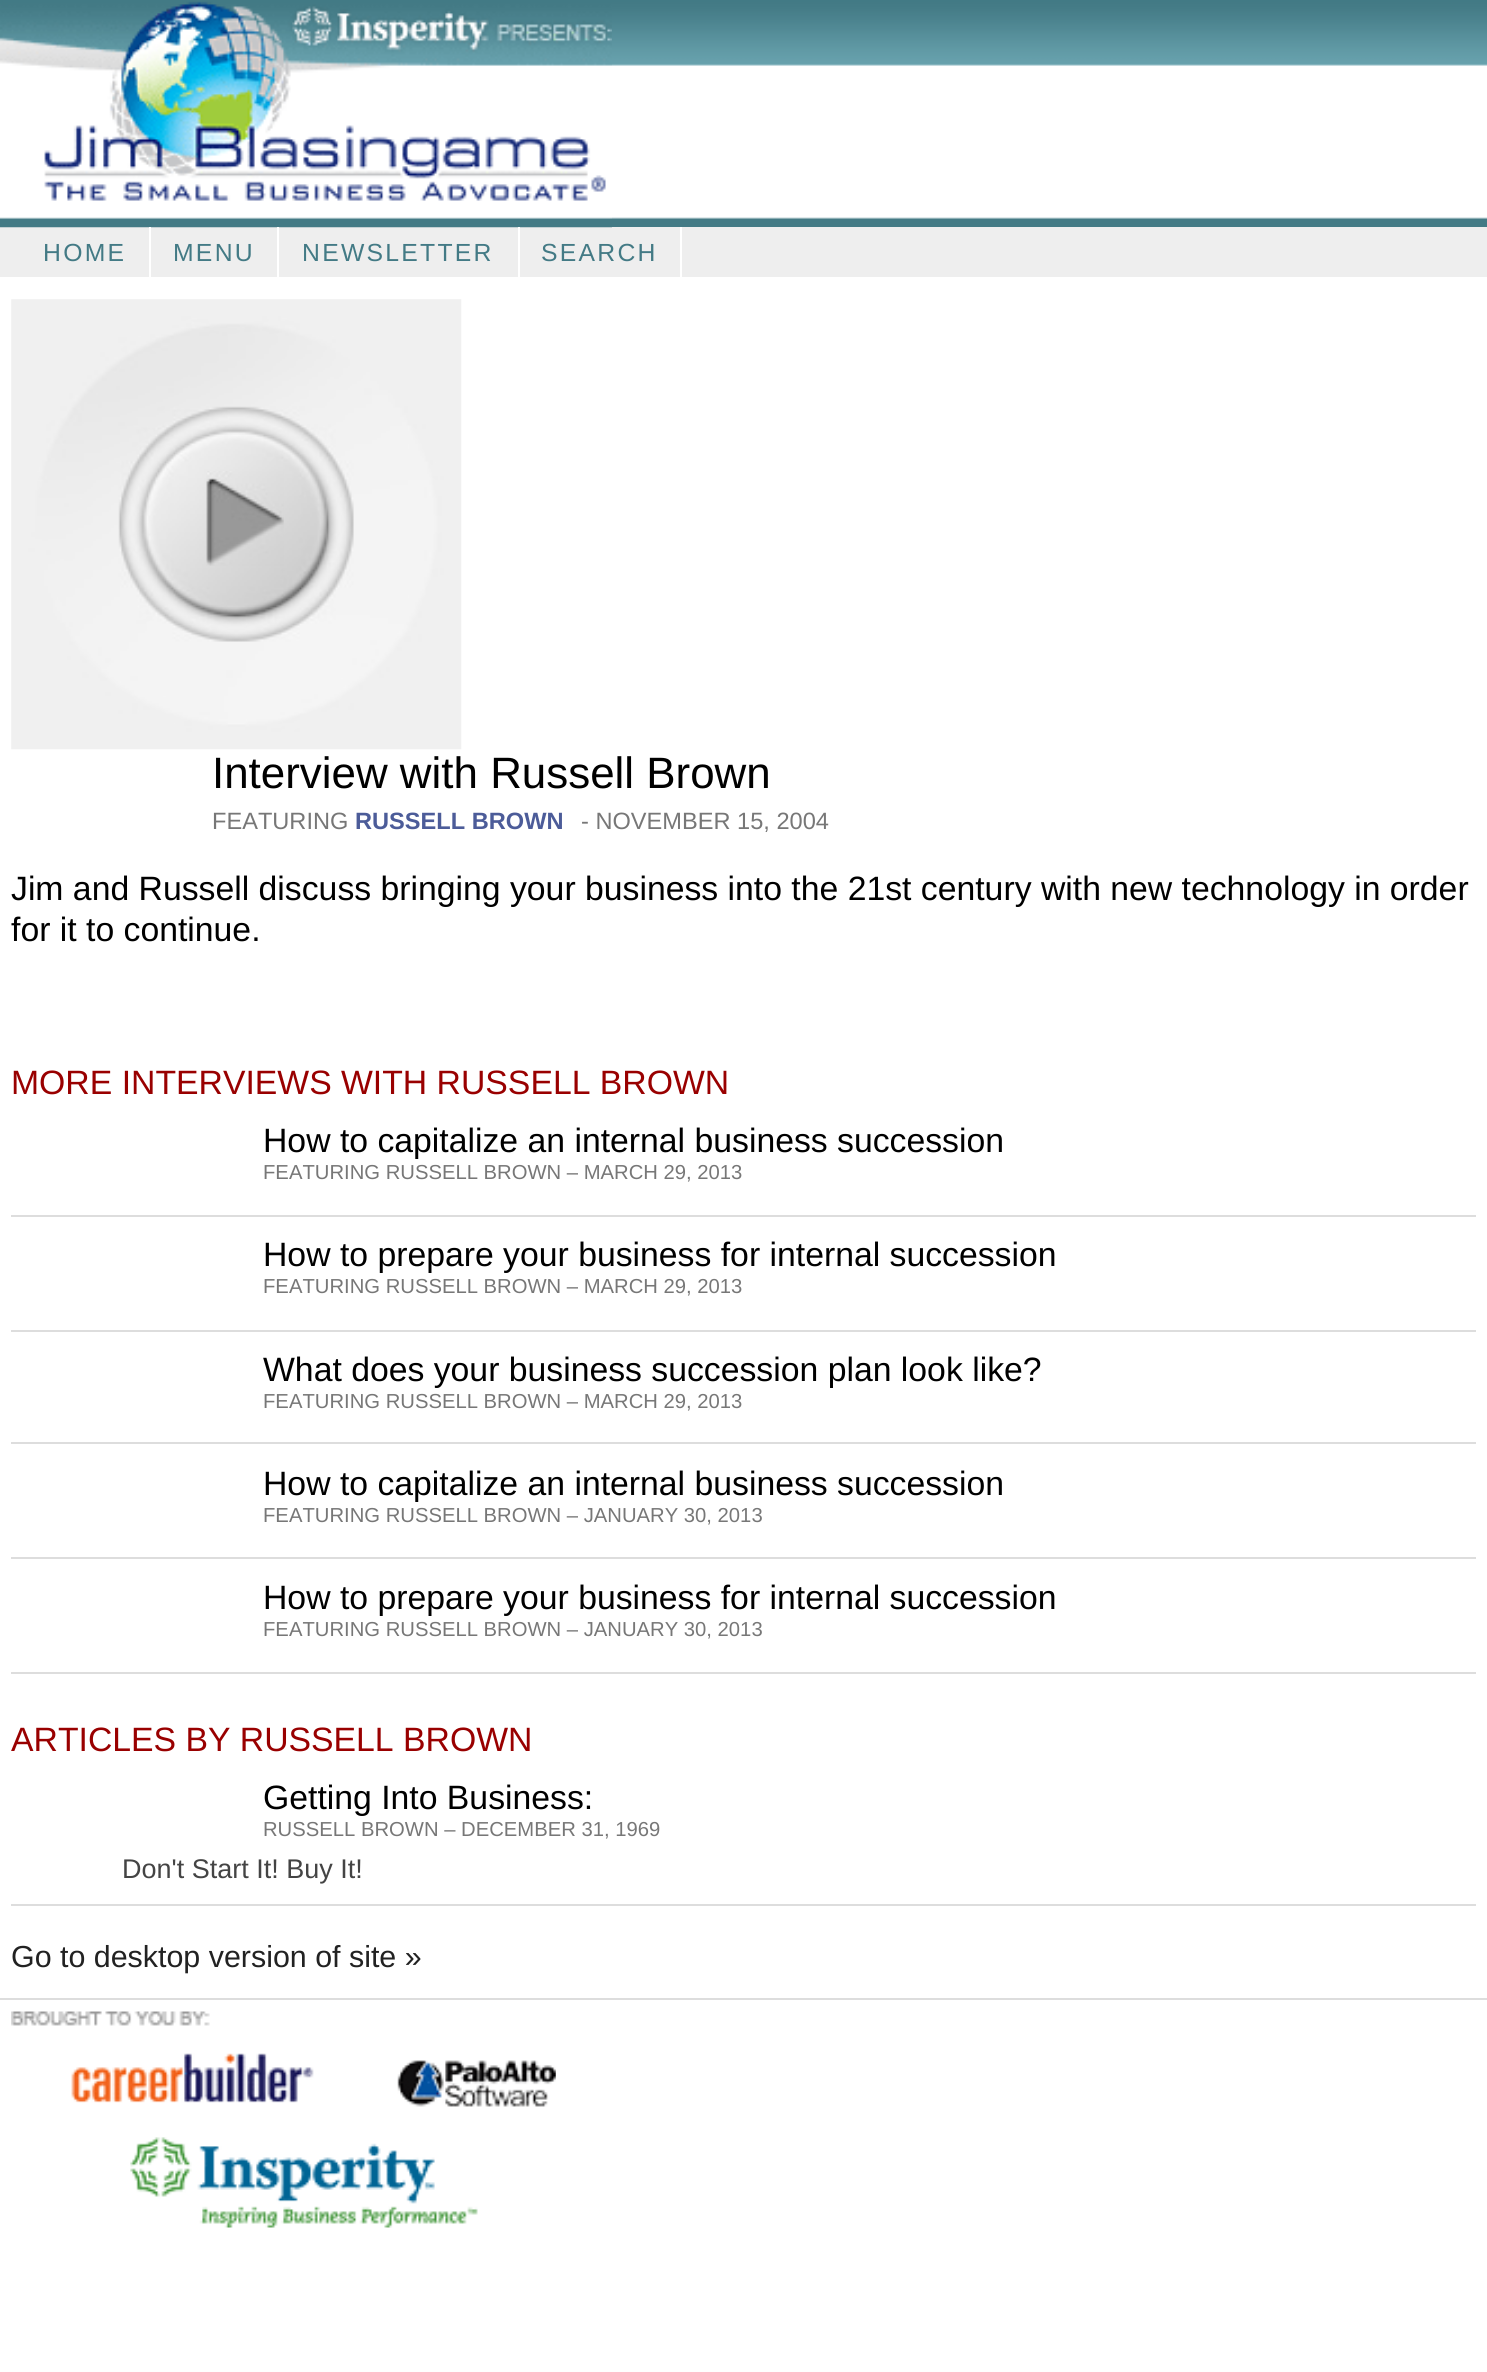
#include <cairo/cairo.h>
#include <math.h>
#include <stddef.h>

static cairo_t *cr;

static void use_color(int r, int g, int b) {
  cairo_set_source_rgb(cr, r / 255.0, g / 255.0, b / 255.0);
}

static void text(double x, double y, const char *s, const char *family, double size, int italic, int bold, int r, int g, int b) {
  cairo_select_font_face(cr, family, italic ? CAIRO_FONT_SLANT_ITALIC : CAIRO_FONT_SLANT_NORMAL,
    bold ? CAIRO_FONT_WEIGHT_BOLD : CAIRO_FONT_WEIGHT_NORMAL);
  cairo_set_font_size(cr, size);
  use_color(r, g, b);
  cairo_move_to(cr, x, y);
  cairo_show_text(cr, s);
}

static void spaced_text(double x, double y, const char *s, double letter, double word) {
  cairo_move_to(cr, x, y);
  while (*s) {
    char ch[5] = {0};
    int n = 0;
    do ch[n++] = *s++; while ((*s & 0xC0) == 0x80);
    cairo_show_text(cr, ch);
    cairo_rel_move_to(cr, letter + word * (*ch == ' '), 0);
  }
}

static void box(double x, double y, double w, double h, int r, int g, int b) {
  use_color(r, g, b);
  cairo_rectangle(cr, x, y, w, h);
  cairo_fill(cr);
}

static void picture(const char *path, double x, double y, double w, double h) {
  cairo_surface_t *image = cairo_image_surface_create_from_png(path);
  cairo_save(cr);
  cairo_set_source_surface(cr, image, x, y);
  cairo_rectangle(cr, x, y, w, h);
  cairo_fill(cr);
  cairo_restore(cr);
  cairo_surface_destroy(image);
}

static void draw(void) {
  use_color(255, 255, 255);
  cairo_paint(cr);
  picture("img_01.png", 0, 0, 1487, 227);
  box(0, 227, 1487, 50, 238, 238, 238);
  picture("img_02.png", 0, 1, 612, 227);
  box(149, 227, 2, 50, 255, 255, 255);
  box(277, 227, 2, 50, 255, 255, 255);
  box(518, 227, 2, 50, 255, 255, 255);
  box(680, 227, 2, 50, 255, 255, 255);
  picture("img_03.png", 11, 299, 451, 451);
  picture("img_04.png", 206, 471, 78, 95);
  box(11, 1215, 1465, 2, 221, 221, 221);
  box(11, 1330, 1465, 2, 221, 221, 221);
  box(11, 1442, 1465, 2, 221, 221, 221);
  box(11, 1557, 1465, 2, 221, 221, 221);
  box(11, 1672, 1465, 2, 221, 221, 221);
  box(11, 1904, 1465, 2, 221, 221, 221);
  box(0, 1998, 1487, 2, 221, 221, 221);
  picture("img_05.png", 11, 2011, 545, 217);
  cairo_select_font_face(cr, "Liberation Sans", CAIRO_FONT_SLANT_NORMAL, CAIRO_FONT_WEIGHT_NORMAL);
  cairo_set_font_size(cr, 24.75);
  use_color(67, 122, 133);
  spaced_text(43, 261, "HOME", 2.25, 0);
  spaced_text(173, 261, "MENU", 2.25, 0);
  spaced_text(302, 261, "NEWSLETTER", 2.25, 0);
  spaced_text(541, 261, "SEARCH", 2.25, 0);
  text(212, 788, "Interview with Russell Brown", "Liberation Sans", 43.9, 0, 0, 0, 0, 0);
  text(212, 829, "FEATURING", "Liberation Sans", 23.6, 0, 0, 119, 119, 119);
  text(355, 829, "RUSSELL BROWN", "Liberation Sans", 23.6, 0, 1, 76, 92, 153);
  text(581, 829, "- NOVEMBER 15, 2004", "Liberation Sans", 23.6, 0, 0, 119, 119, 119);
  text(11, 900, "Jim and Russell discuss bringing your business into the 21st century with new technology in order", "Liberation Sans", 33.75, 0, 0, 0, 0, 0);
  text(11, 941, "for it to continue.", "Liberation Sans", 33.75, 0, 0, 0, 0, 0);
  text(11, 1094, "MORE INTERVIEWS WITH RUSSELL BROWN", "Liberation Sans", 33.75, 0, 0, 153, 0, 0);
  text(263, 1152, "How to capitalize an internal business succession", "Liberation Sans", 33.75, 0, 0, 0, 0, 0);
  text(263, 1179, "FEATURING RUSSELL BROWN – MARCH 29, 2013", "Liberation Sans", 20.25, 0, 0, 119, 119, 119);
  text(263, 1266, "How to prepare your business for internal succession", "Liberation Sans", 33.75, 0, 0, 0, 0, 0);
  text(263, 1293, "FEATURING RUSSELL BROWN – MARCH 29, 2013", "Liberation Sans", 20.25, 0, 0, 119, 119, 119);
  text(263, 1381, "What does your business succession plan look like?", "Liberation Sans", 33.75, 0, 0, 0, 0, 0);
  text(263, 1408, "FEATURING RUSSELL BROWN – MARCH 29, 2013", "Liberation Sans", 20.25, 0, 0, 119, 119, 119);
  text(263, 1495, "How to capitalize an internal business succession", "Liberation Sans", 33.75, 0, 0, 0, 0, 0);
  text(263, 1522, "FEATURING RUSSELL BROWN – JANUARY 30, 2013", "Liberation Sans", 20.25, 0, 0, 119, 119, 119);
  text(263, 1609, "How to prepare your business for internal succession", "Liberation Sans", 33.75, 0, 0, 0, 0, 0);
  text(263, 1636, "FEATURING RUSSELL BROWN – JANUARY 30, 2013", "Liberation Sans", 20.25, 0, 0, 119, 119, 119);
  text(11, 1751, "ARTICLES BY RUSSELL BROWN", "Liberation Sans", 33.75, 0, 0, 153, 0, 0);
  text(263, 1809, "Getting Into Business:", "Liberation Sans", 33.75, 0, 0, 0, 0, 0);
  text(263, 1836, "RUSSELL BROWN – DECEMBER 31, 1969", "Liberation Sans", 20.25, 0, 0, 119, 119, 119);
  text(122, 1878, "Don't Start It! Buy It!", "Liberation Sans", 27, 0, 0, 68, 68, 68);
  text(11, 1967, "Go to desktop version of site »", "Liberation Sans", 30.4, 0, 0, 34, 34, 34);
}

int main(void) {
  cairo_surface_t *surface = cairo_image_surface_create(CAIRO_FORMAT_RGB24, 1487, 2372);
  cr = cairo_create(surface);
  cairo_font_options_t *options = cairo_font_options_create();
  cairo_font_options_set_hint_metrics(options, CAIRO_HINT_METRICS_OFF);
  cairo_font_options_set_hint_style(options, CAIRO_HINT_STYLE_NONE);
  cairo_set_font_options(cr, options);
  cairo_set_miter_limit(cr, 4);
  draw();
  cairo_surface_write_to_png(surface, "out.png");
  cairo_font_options_destroy(options);
  cairo_destroy(cr);
  cairo_surface_destroy(surface);
  return 0;
}
